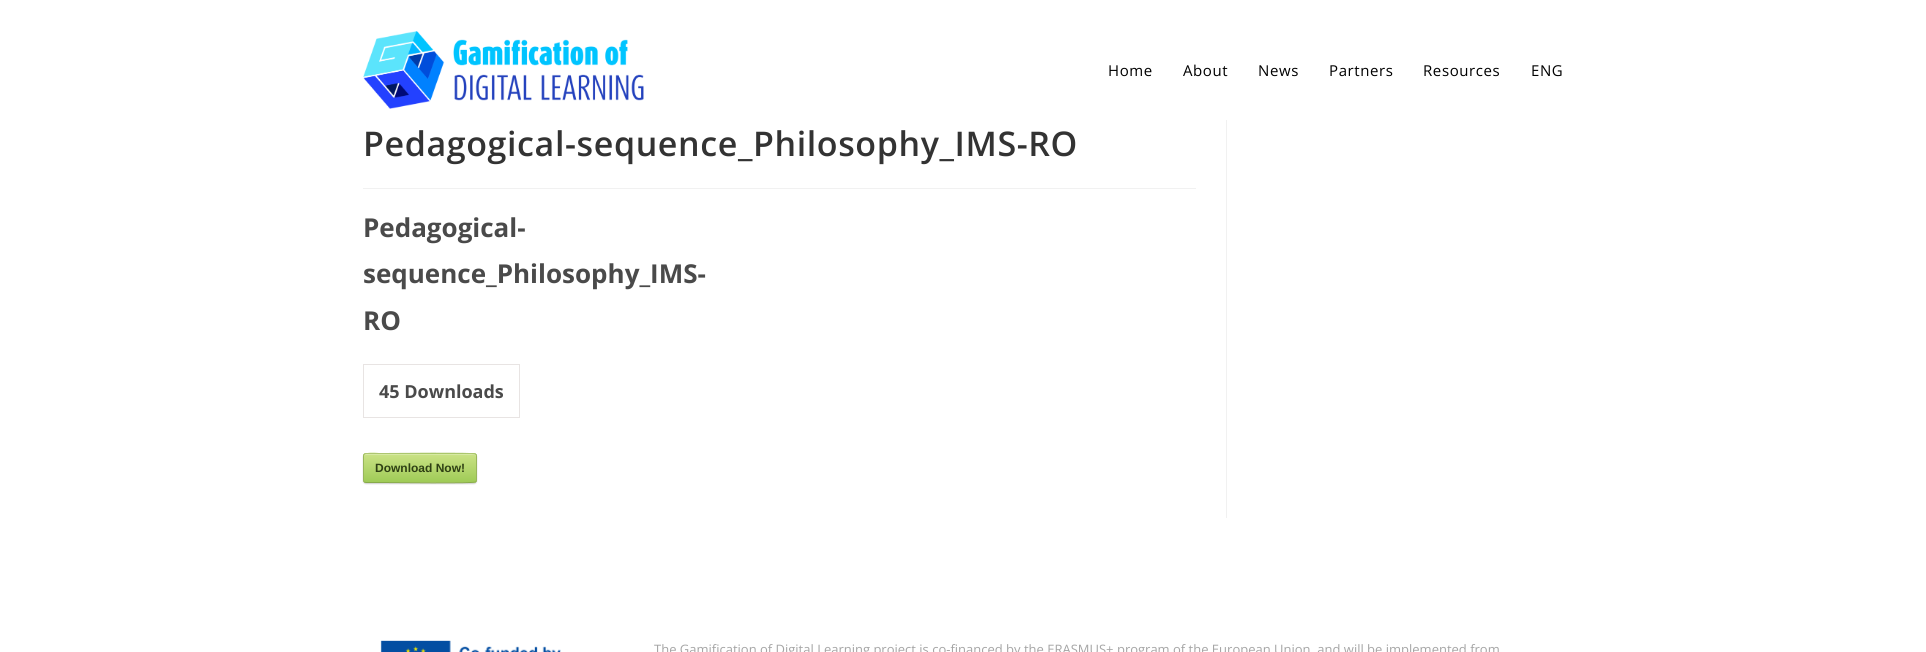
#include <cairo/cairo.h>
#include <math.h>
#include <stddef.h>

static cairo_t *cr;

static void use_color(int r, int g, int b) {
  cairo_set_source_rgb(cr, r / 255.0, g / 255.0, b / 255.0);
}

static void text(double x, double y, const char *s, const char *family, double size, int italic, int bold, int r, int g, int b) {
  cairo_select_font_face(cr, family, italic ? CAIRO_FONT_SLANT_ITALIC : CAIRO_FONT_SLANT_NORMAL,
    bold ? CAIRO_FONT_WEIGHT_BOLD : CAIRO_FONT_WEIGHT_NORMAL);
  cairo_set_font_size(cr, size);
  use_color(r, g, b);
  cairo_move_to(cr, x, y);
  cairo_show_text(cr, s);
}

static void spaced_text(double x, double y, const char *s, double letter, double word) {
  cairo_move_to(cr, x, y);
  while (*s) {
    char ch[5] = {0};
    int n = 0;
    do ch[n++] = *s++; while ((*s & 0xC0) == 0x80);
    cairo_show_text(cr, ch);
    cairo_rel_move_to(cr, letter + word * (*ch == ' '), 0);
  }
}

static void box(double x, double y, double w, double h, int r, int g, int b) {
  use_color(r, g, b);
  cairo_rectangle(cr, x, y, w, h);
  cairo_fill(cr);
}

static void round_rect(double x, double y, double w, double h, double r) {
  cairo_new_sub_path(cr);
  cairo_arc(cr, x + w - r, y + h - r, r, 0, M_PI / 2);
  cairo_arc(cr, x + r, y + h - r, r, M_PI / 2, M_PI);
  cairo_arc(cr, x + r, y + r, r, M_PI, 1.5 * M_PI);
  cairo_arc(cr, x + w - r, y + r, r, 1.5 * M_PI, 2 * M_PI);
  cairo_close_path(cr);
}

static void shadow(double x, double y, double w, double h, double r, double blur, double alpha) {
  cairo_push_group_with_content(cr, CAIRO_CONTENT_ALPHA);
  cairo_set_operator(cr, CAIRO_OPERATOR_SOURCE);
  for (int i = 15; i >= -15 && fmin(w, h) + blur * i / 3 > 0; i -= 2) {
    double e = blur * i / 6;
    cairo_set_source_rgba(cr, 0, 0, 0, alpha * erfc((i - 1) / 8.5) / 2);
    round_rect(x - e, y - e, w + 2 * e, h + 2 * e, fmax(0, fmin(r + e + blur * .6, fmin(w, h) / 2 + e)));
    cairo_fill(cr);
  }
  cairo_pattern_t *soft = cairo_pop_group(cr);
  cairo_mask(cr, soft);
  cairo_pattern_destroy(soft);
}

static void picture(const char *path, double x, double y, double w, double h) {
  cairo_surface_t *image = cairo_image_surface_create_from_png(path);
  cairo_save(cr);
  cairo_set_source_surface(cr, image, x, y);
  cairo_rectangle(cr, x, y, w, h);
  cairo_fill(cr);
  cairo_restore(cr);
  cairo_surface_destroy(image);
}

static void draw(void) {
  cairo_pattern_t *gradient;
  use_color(255, 255, 255);
  cairo_paint(cr);
  picture("img_01.png", 363, 31, 281, 78);
  box(1226, 120, 1, 398, 241, 241, 241);
  box(363, 188, 833, 1, 241, 241, 241);
  cairo_rectangle(cr, 363.5, 364.5, 156, 53);
  use_color(232, 228, 227);
  cairo_set_line_width(cr, 1);
  cairo_stroke(cr);
  use_color(211, 211, 211);
  shadow(363, 454, 114, 30, 3, 0.5, 1);
  cairo_save(cr);
  round_rect(363, 453, 114, 30, 3);
  cairo_clip(cr);
  gradient = cairo_pattern_create_linear(364, 426, 364, 454);
  cairo_pattern_add_color_stop_rgba(gradient, 0, 0.792, 0.886, 0.522, 1);
  cairo_pattern_add_color_stop_rgba(gradient, 1, 0.624, 0.796, 0.341, 1);
  cairo_set_source(cr, gradient);
  cairo_pattern_destroy(gradient);
  cairo_rectangle(cr, 363, 453, 114, 1);
  cairo_fill(cr);
  gradient = cairo_pattern_create_linear(364, 454, 364, 482);
  cairo_pattern_add_color_stop_rgba(gradient, 0, 0.792, 0.886, 0.522, 1);
  cairo_pattern_add_color_stop_rgba(gradient, 1, 0.624, 0.796, 0.341, 1);
  cairo_set_source(cr, gradient);
  cairo_pattern_destroy(gradient);
  cairo_rectangle(cr, 363, 454, 114, 28);
  cairo_fill(cr);
  gradient = cairo_pattern_create_linear(364, 482, 364, 510);
  cairo_pattern_add_color_stop_rgba(gradient, 0, 0.792, 0.886, 0.522, 1);
  cairo_pattern_add_color_stop_rgba(gradient, 1, 0.624, 0.796, 0.341, 1);
  cairo_set_source(cr, gradient);
  cairo_pattern_destroy(gradient);
  cairo_rectangle(cr, 363, 482, 114, 1);
  cairo_fill(cr);
  cairo_restore(cr);
  use_color(215, 233, 164);
  cairo_new_path(cr);
  cairo_move_to(cr, 366, 455);
  cairo_line_to(cr, 474, 455);
  cairo_curve_to(cr, 475, 455, 476, 456, 476, 457);
  cairo_curve_to(cr, 476, 456, 476, 454, 474, 454);
  cairo_line_to(cr, 384, 454);
  cairo_curve_to(cr, 384, 454, 364, 449, 364, 457);
  cairo_curve_to(cr, 364, 456, 365, 455, 366, 455);
  cairo_close_path(cr);
  cairo_fill(cr);
  cairo_new_path(cr);
  cairo_move_to(cr, 364, 454);
  cairo_line_to(cr, 366, 453.5);
  cairo_line_to(cr, 384, 453.5);
  cairo_curve_to(cr, 393, 453.5, 473.5, 452.5, 475.5, 454);
  cairo_line_to(cr, 476, 454);
  use_color(173, 198, 113);
  cairo_stroke(cr);
  cairo_new_path(cr);
  cairo_move_to(cr, 476, 454);
  cairo_curve_to(cr, 476, 454.5, 476.5, 455.5, 476.5, 456);
  cairo_line_to(cr, 476.5, 480);
  cairo_curve_to(cr, 476.5, 480.5, 476, 481.5, 476, 482);
  use_color(152, 182, 91);
  cairo_stroke(cr);
  cairo_new_path(cr);
  cairo_move_to(cr, 476, 482);
  cairo_line_to(cr, 475.5, 482);
  cairo_curve_to(cr, 473.5, 483.5, 393, 482.5, 384, 482.5);
  cairo_line_to(cr, 366, 482.5);
  cairo_line_to(cr, 364, 482);
  use_color(135, 170, 74);
  cairo_stroke(cr);
  cairo_new_path(cr);
  cairo_move_to(cr, 364, 482);
  cairo_curve_to(cr, 364, 481.5, 363.5, 480.5, 363.5, 480);
  cairo_line_to(cr, 363.5, 456);
  cairo_curve_to(cr, 363.5, 455.5, 364, 454.5, 364, 454);
  use_color(152, 182, 91);
  cairo_stroke(cr);
  picture("img_02.png", 380, 640, 181, 12);
  cairo_select_font_face(cr, "Open Sans", CAIRO_FONT_SLANT_NORMAL, CAIRO_FONT_WEIGHT_NORMAL);
  cairo_set_font_size(cr, 15);
  use_color(0, 0, 0);
  spaced_text(1108, 76, "Home", 0.6, 0);
  spaced_text(1183, 76, "About", 0.6, 0);
  spaced_text(1258, 76, "News", 0.6, 0);
  spaced_text(1329, 76, "Partners", 0.6, 0);
  spaced_text(1423, 76, "Resources", 0.6, 0);
  spaced_text(1531, 76, "ENG", 0.6, 0);
  cairo_select_font_face(cr, "Open Sans SemiBold", CAIRO_FONT_SLANT_NORMAL, CAIRO_FONT_WEIGHT_NORMAL);
  cairo_set_font_size(cr, 34);
  use_color(51, 51, 51);
  spaced_text(363, 156, "Pedagogical-sequence_Philosophy_IMS-RO", 0.6, 0);
  text(363, 237, "Pedagogical-", "Open Sans", 26, 0, 1, 74, 74, 74);
  text(363, 283, "sequence_Philosophy_IMS-", "Open Sans", 26, 0, 1, 74, 74, 74);
  text(363, 330, "RO", "Open Sans", 26, 0, 1, 74, 74, 74);
  text(379, 398, "45 Downloads", "Open Sans", 18, 0, 1, 74, 74, 74);
  text(375, 472, "Download Now!", "Liberation Sans", 12, 0, 1, 47, 64, 20);
  text(654, 654, "The Gamification of Digital Learning project is co-financed by the ERASMUS+ program of the European Union, and will be implemented from", "Open Sans", 13, 0, 0, 165, 165, 165);
}

int main(void) {
  cairo_surface_t *surface = cairo_image_surface_create(CAIRO_FORMAT_RGB24, 1926, 652);
  cr = cairo_create(surface);
  cairo_font_options_t *options = cairo_font_options_create();
  cairo_font_options_set_hint_metrics(options, CAIRO_HINT_METRICS_OFF);
  cairo_font_options_set_hint_style(options, CAIRO_HINT_STYLE_NONE);
  cairo_set_font_options(cr, options);
  cairo_set_miter_limit(cr, 4);
  draw();
  cairo_surface_write_to_png(surface, "out.png");
  cairo_font_options_destroy(options);
  cairo_destroy(cr);
  cairo_surface_destroy(surface);
  return 0;
}
